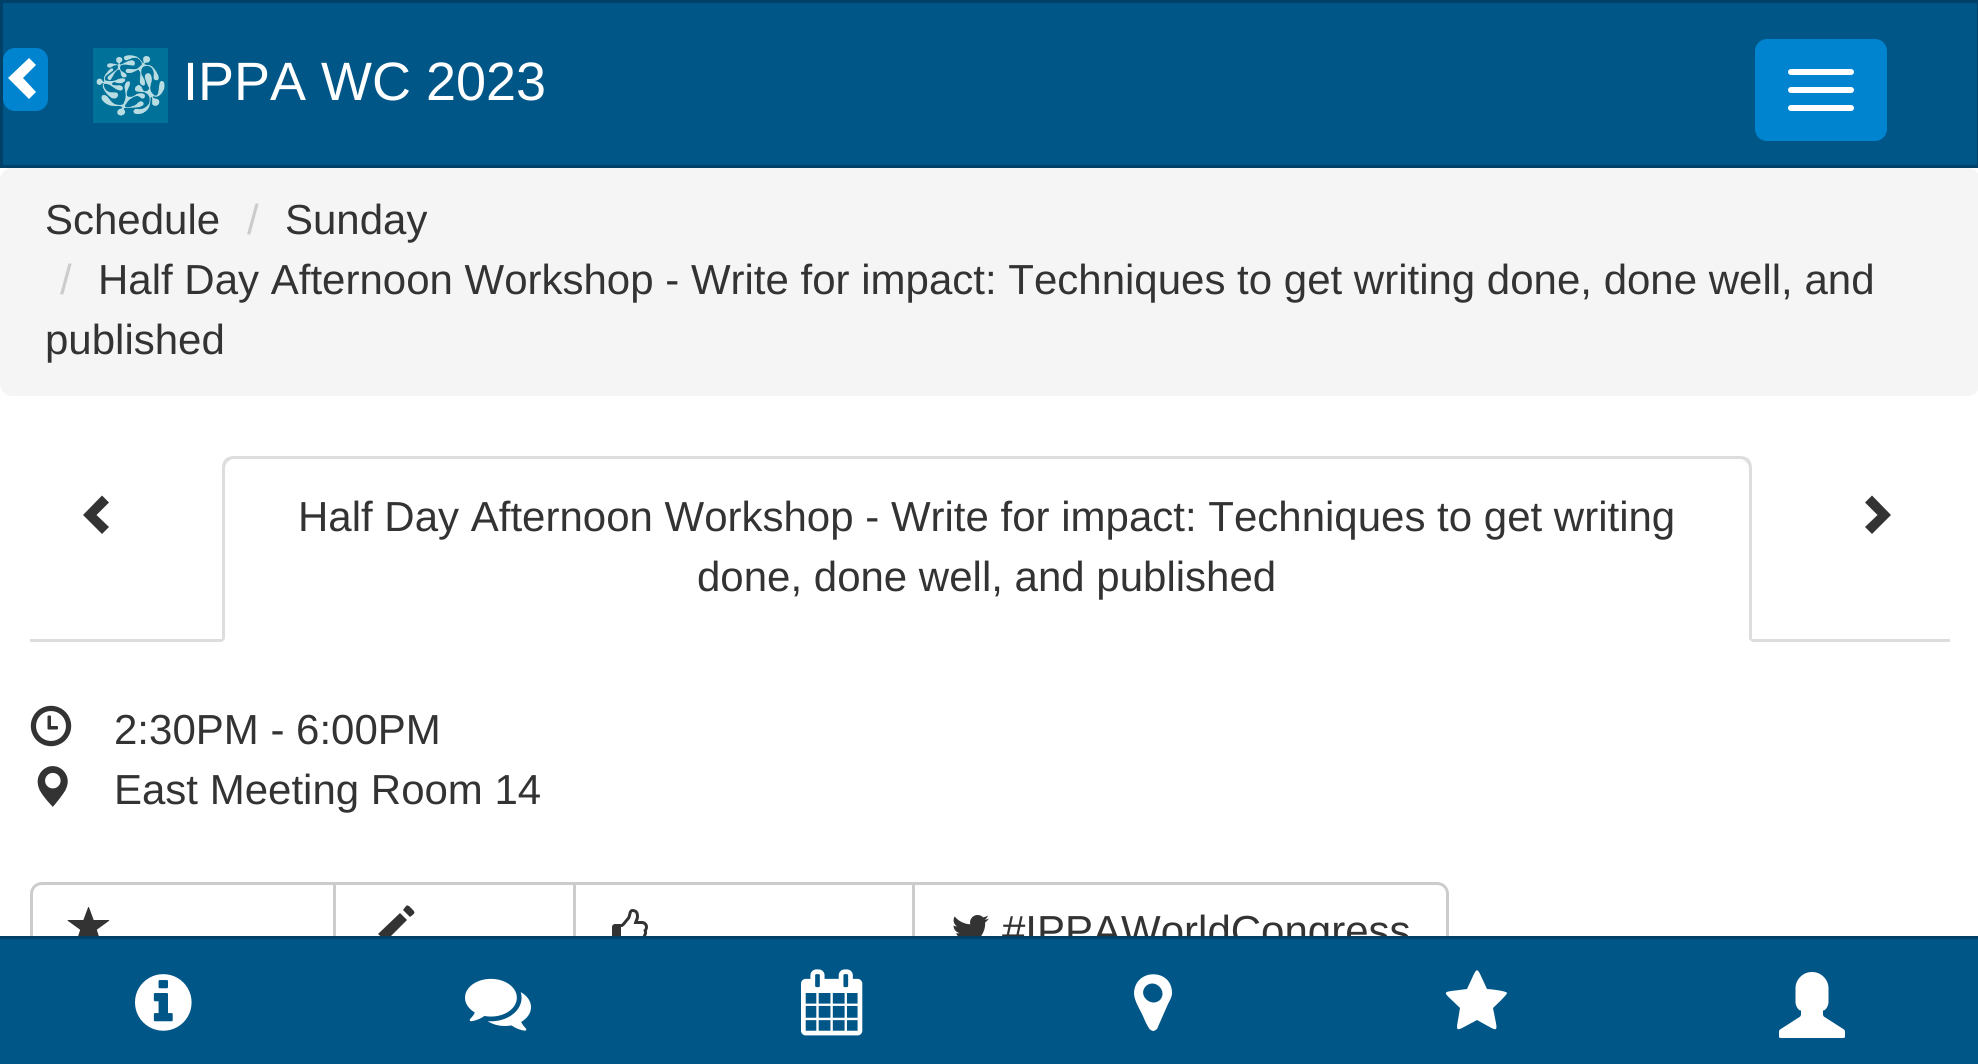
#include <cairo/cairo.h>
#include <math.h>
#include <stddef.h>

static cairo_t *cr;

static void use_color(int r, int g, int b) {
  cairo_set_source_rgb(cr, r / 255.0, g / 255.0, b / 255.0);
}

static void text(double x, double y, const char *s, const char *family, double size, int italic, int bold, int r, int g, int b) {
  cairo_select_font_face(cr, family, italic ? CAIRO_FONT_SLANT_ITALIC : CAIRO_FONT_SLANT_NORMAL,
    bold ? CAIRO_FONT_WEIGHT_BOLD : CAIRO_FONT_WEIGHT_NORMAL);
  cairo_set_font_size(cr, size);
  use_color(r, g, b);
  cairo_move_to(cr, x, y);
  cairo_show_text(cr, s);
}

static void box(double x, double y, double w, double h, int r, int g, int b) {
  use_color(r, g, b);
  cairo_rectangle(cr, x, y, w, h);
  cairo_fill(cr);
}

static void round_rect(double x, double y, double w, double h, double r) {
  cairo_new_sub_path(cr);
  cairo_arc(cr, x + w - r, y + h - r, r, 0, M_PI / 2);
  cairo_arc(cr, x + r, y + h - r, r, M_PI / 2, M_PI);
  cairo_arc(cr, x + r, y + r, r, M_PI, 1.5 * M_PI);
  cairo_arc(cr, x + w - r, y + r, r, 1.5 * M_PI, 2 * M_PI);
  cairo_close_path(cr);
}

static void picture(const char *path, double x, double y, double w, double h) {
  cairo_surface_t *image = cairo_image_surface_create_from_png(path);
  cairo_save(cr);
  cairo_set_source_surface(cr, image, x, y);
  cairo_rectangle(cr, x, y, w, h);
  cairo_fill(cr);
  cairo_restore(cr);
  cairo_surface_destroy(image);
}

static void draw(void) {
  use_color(255, 255, 255);
  cairo_paint(cr);
  use_color(1, 86, 136);
  cairo_rectangle(cr, 1.5, 1.5, 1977, 165);
  cairo_fill_preserve(cr);
  use_color(1, 65, 103);
  cairo_set_line_width(cr, 3);
  cairo_stroke(cr);
  use_color(0, 132, 208);
  round_rect(3, 48, 45, 63, 12);
  cairo_fill(cr);
  use_color(255, 255, 255);
  cairo_new_path(cr);
  cairo_move_to(cr, 36, 65);
  cairo_line_to(cr, 23, 78);
  cairo_line_to(cr, 36, 92);
  cairo_line_to(cr, 29, 99);
  cairo_line_to(cr, 8, 78);
  cairo_line_to(cr, 29, 58);
  cairo_close_path(cr);
  cairo_fill(cr);
  picture("img_01.png", 93, 48, 75, 75);
  use_color(0, 132, 208);
  round_rect(1756.5, 40.5, 129, 99, 10.5);
  cairo_fill_preserve(cr);
  cairo_stroke(cr);
  use_color(255, 255, 255);
  round_rect(1788, 69, 66, 6, 3);
  cairo_fill(cr);
  round_rect(1788, 87, 66, 6, 3);
  cairo_fill(cr);
  round_rect(1788, 105, 66, 6, 3);
  cairo_fill(cr);
  use_color(245, 245, 245);
  round_rect(0, 168, 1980, 228, 12);
  cairo_fill(cr);
  box(30, 639, 1920, 3, 221, 221, 221);
  use_color(51, 51, 51);
  cairo_new_path(cr);
  cairo_move_to(cr, 109, 502.5);
  cairo_line_to(cr, 96.5, 515);
  cairo_line_to(cr, 109, 527);
  cairo_line_to(cr, 102, 534);
  cairo_line_to(cr, 83, 515);
  cairo_line_to(cr, 102, 495.5);
  cairo_close_path(cr);
  cairo_fill(cr);
  use_color(255, 255, 255);
  cairo_new_path(cr);
  cairo_move_to(cr, 234, 456);
  cairo_line_to(cr, 1740, 456);
  cairo_curve_to(cr, 1746.5, 456, 1752, 461.5, 1752, 468);
  cairo_line_to(cr, 1752, 642);
  cairo_line_to(cr, 222, 642);
  cairo_line_to(cr, 222, 468);
  cairo_curve_to(cr, 222, 461.5, 227.5, 456, 234, 456);
  cairo_close_path(cr);
  cairo_fill(cr);
  use_color(221, 221, 221);
  cairo_new_path(cr);
  cairo_move_to(cr, 234, 456);
  cairo_curve_to(cr, 230, 456, 228, 457, 225, 459);
  cairo_line_to(cr, 228, 462);
  cairo_curve_to(cr, 229, 460, 232, 459, 234, 459);
  cairo_line_to(cr, 1740, 459);
  cairo_curve_to(cr, 1742, 459, 1745, 460, 1746, 462);
  cairo_line_to(cr, 1749, 459);
  cairo_curve_to(cr, 1746, 457, 1744, 456, 1740, 456);
  cairo_close_path(cr);
  cairo_fill(cr);
  cairo_new_path(cr);
  cairo_move_to(cr, 1752, 642);
  cairo_line_to(cr, 1752, 468);
  cairo_curve_to(cr, 1752, 464, 1751, 462, 1749, 459);
  cairo_line_to(cr, 1746, 462);
  cairo_curve_to(cr, 1748, 463, 1749, 466, 1749, 468);
  cairo_line_to(cr, 1749, 639);
  cairo_close_path(cr);
  cairo_fill(cr);
  cairo_new_path(cr);
  cairo_move_to(cr, 222, 642);
  cairo_line_to(cr, 225, 639);
  cairo_line_to(cr, 225, 468);
  cairo_curve_to(cr, 225, 466, 226, 463, 228, 462);
  cairo_line_to(cr, 225, 459);
  cairo_curve_to(cr, 223, 462, 222, 464, 222, 468);
  cairo_close_path(cr);
  cairo_fill(cr);
  use_color(51, 51, 51);
  cairo_new_path(cr);
  cairo_move_to(cr, 1891, 515);
  cairo_line_to(cr, 1872, 534);
  cairo_line_to(cr, 1865, 527);
  cairo_line_to(cr, 1877.5, 515);
  cairo_line_to(cr, 1865, 502.5);
  cairo_line_to(cr, 1872, 495.5);
  cairo_close_path(cr);
  cairo_fill(cr);
  picture("img_02.png", 30, 705, 42, 42);
  picture("img_03.png", 37, 766, 31, 41);
  cairo_new_path(cr);
  cairo_move_to(cr, 42, 883.5);
  cairo_line_to(cr, 334.5, 883.5);
  cairo_line_to(cr, 334.5, 982.5);
  cairo_line_to(cr, 42, 982.5);
  cairo_curve_to(cr, 36, 982.5, 31.5, 978, 31.5, 972);
  cairo_line_to(cr, 31.5, 894);
  cairo_curve_to(cr, 31.5, 888, 36, 883.5, 42, 883.5);
  cairo_close_path(cr);
  use_color(204, 204, 204);
  cairo_stroke(cr);
  picture("img_04.png", 67, 907, 43, 29);
  cairo_rectangle(cr, 334.5, 883.5, 240, 99);
  cairo_stroke(cr);
  use_color(51, 51, 51);
  cairo_new_path(cr);
  cairo_move_to(cr, 406, 906);
  cairo_curve_to(cr, 408, 904, 411, 908, 412, 909);
  cairo_curve_to(cr, 416, 913, 415, 913, 410, 917);
  cairo_line_to(cr, 403, 910);
  cairo_close_path(cr);
  cairo_move_to(cr, 407, 920);
  cairo_line_to(cr, 386, 941);
  cairo_line_to(cr, 378, 934);
  cairo_line_to(cr, 400, 913);
  cairo_close_path(cr);
  cairo_move_to(cr, 383, 945);
  cairo_line_to(cr, 371, 949);
  cairo_line_to(cr, 375, 937);
  cairo_close_path(cr);
  cairo_fill(cr);
  cairo_rectangle(cr, 574.5, 883.5, 339, 99);
  use_color(204, 204, 204);
  cairo_stroke(cr);
  picture("img_05.png", 612, 909, 36, 27);
  use_color(255, 255, 255);
  cairo_new_path(cr);
  cairo_move_to(cr, 913.5, 883.5);
  cairo_line_to(cr, 1437, 883.5);
  cairo_curve_to(cr, 1443, 883.5, 1447.5, 888, 1447.5, 894);
  cairo_line_to(cr, 1447.5, 972);
  cairo_curve_to(cr, 1447.5, 978, 1443, 982.5, 1437, 982.5);
  cairo_line_to(cr, 913.5, 982.5);
  cairo_close_path(cr);
  cairo_fill_preserve(cr);
  use_color(204, 204, 204);
  cairo_stroke(cr);
  picture("img_06.png", 953, 915, 36, 21);
  text(183, 100, "IPPA WC 2023", "Liberation Sans", 54, 0, 0, 255, 255, 255);
  text(45, 234, "Schedule", "Liberation Sans", 42, 0, 0, 51, 51, 51);
  text(247, 234, "/", "Liberation Sans", 42, 0, 0, 204, 204, 204);
  text(285, 234, "Sunday", "Liberation Sans", 42, 0, 0, 51, 51, 51);
  text(60, 294, "/", "Liberation Sans", 42, 0, 0, 204, 204, 204);
  text(98, 294, "Half Day Afternoon Workshop - Write for impact: Techniques to get writing done, done well, and", "Liberation Sans", 42, 0, 0, 51, 51, 51);
  text(45, 354, "published", "Liberation Sans", 42, 0, 0, 51, 51, 51);
  text(298, 531, "Half Day Afternoon Workshop - Write for impact: Techniques to get writing", "Liberation Sans", 42, 0, 0, 51, 51, 51);
  text(697, 591, "done, done well, and published", "Liberation Sans", 42, 0, 0, 51, 51, 51);
  text(114, 744, "2:30PM - 6:00PM", "Liberation Sans", 42, 0, 0, 51, 51, 51);
  text(114, 804, "East Meeting Room 14", "Liberation Sans", 42, 0, 0, 51, 51, 51);
  text(1002, 945, "#IPPAWorldCongress", "Liberation Sans", 42, 0, 0, 51, 51, 51);
  box(0, 939, 1978, 125, 1, 86, 136);
  box(0, 936, 1978, 3, 1, 65, 103);
  picture("img_07.png", 135, 974, 57, 57);
  picture("img_08.png", 465, 978, 66, 53);
  picture("img_09.png", 801, 969, 62, 67);
  use_color(255, 255, 255);
  cairo_new_path(cr);
  cairo_move_to(cr, 1160, 1000);
  cairo_curve_to(cr, 1168, 991, 1155, 978, 1146, 986);
  cairo_curve_to(cr, 1137, 995, 1151, 1008, 1160, 1000);
  cairo_close_path(cr);
  cairo_move_to(cr, 1172, 993);
  cairo_curve_to(cr, 1172, 997, 1170, 1000, 1168, 1004);
  cairo_line_to(cr, 1157, 1029);
  cairo_line_to(cr, 1154, 1031);
  cairo_curve_to(cr, 1149, 1031, 1148, 1026, 1146, 1023);
  cairo_line_to(cr, 1142, 1014);
  cairo_curve_to(cr, 1139, 1008, 1134, 1000, 1134, 993);
  cairo_curve_to(cr, 1135, 968, 1172, 968, 1172, 993);
  cairo_close_path(cr);
  cairo_fill(cr);
  cairo_new_path(cr);
  cairo_move_to(cr, 1507, 993);
  cairo_curve_to(cr, 1507, 995, 1495, 1006, 1493, 1008);
  cairo_curve_to(cr, 1498, 1035, 1501, 1033, 1477, 1020);
  cairo_curve_to(cr, 1452, 1033, 1456, 1035, 1460, 1008);
  cairo_curve_to(cr, 1441, 989, 1439, 993, 1467, 989);
  cairo_curve_to(cr, 1479, 964, 1475, 964, 1487, 989);
  cairo_curve_to(cr, 1490, 989, 1507, 991, 1507, 993);
  cairo_close_path(cr);
  cairo_fill(cr);
  picture("img_10.png", 1779, 972, 66, 66);
}

int main(void) {
  cairo_surface_t *surface = cairo_image_surface_create(CAIRO_FORMAT_RGB24, 1978, 1064);
  cr = cairo_create(surface);
  cairo_font_options_t *options = cairo_font_options_create();
  cairo_font_options_set_hint_metrics(options, CAIRO_HINT_METRICS_OFF);
  cairo_font_options_set_hint_style(options, CAIRO_HINT_STYLE_NONE);
  cairo_set_font_options(cr, options);
  cairo_set_miter_limit(cr, 4);
  draw();
  cairo_surface_write_to_png(surface, "out.png");
  cairo_font_options_destroy(options);
  cairo_destroy(cr);
  cairo_surface_destroy(surface);
  return 0;
}
